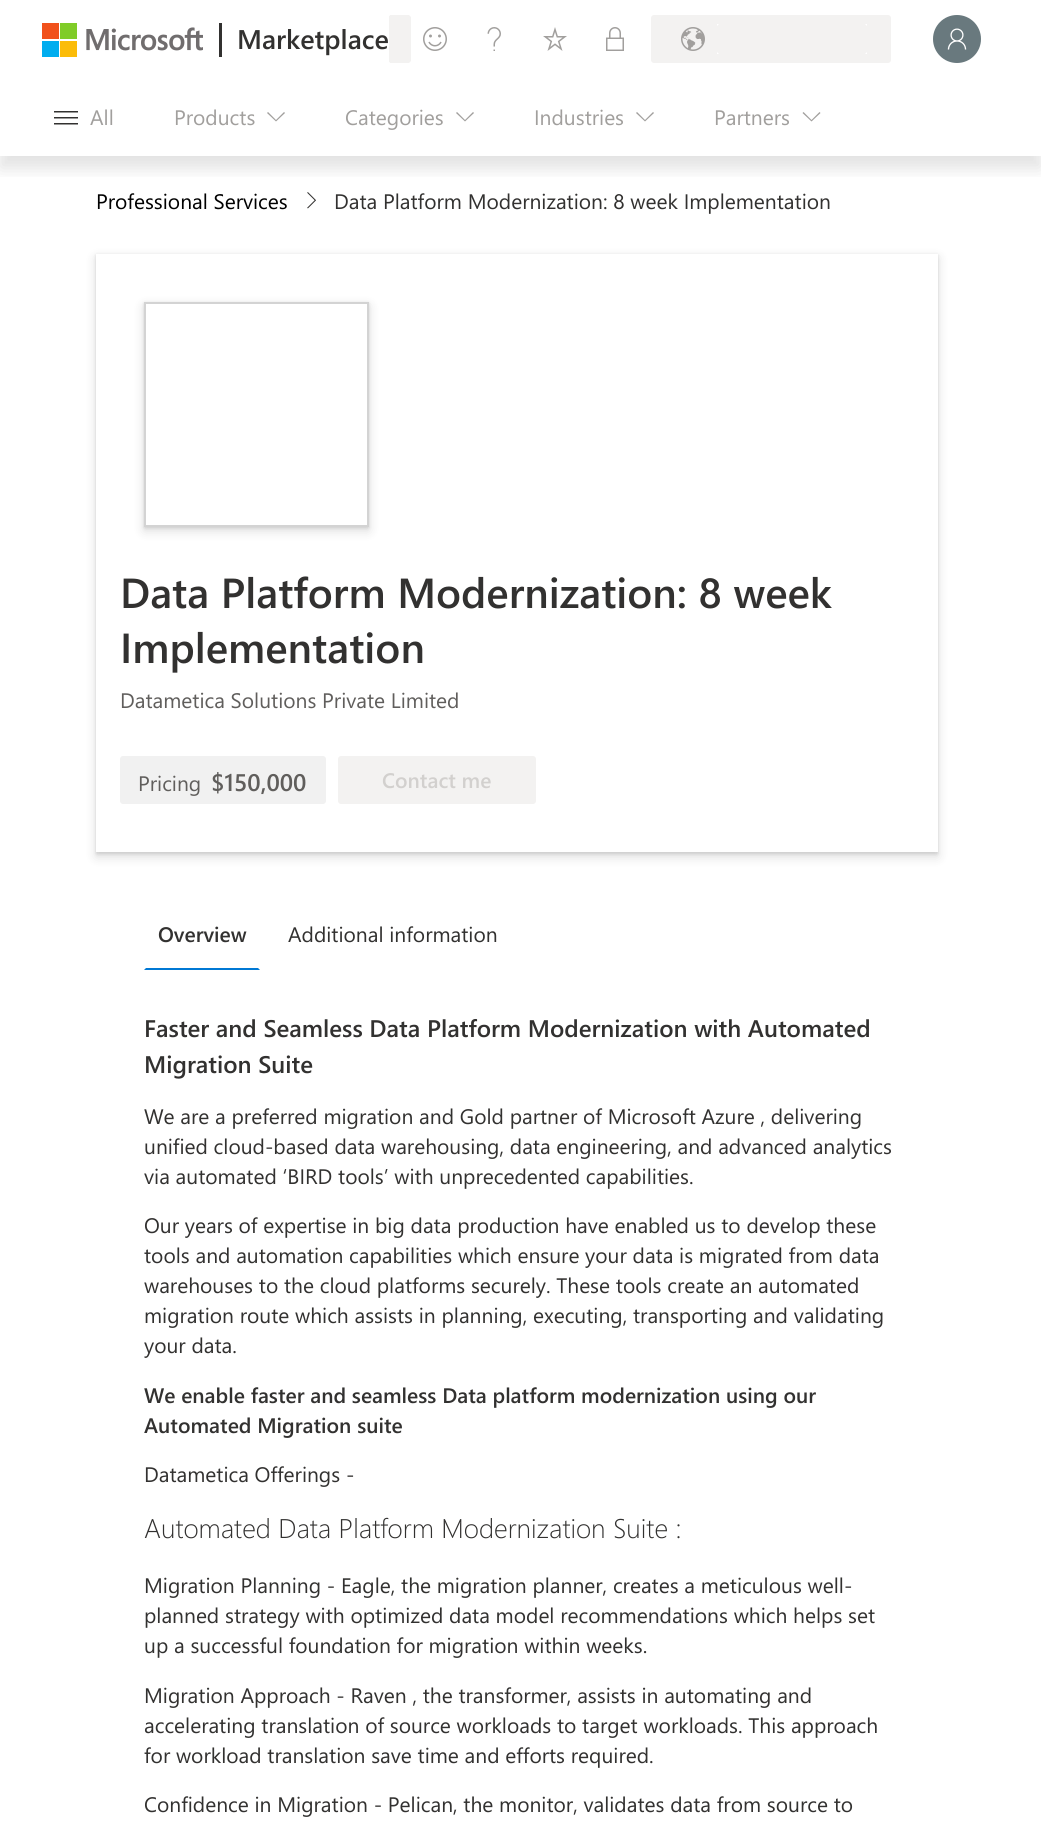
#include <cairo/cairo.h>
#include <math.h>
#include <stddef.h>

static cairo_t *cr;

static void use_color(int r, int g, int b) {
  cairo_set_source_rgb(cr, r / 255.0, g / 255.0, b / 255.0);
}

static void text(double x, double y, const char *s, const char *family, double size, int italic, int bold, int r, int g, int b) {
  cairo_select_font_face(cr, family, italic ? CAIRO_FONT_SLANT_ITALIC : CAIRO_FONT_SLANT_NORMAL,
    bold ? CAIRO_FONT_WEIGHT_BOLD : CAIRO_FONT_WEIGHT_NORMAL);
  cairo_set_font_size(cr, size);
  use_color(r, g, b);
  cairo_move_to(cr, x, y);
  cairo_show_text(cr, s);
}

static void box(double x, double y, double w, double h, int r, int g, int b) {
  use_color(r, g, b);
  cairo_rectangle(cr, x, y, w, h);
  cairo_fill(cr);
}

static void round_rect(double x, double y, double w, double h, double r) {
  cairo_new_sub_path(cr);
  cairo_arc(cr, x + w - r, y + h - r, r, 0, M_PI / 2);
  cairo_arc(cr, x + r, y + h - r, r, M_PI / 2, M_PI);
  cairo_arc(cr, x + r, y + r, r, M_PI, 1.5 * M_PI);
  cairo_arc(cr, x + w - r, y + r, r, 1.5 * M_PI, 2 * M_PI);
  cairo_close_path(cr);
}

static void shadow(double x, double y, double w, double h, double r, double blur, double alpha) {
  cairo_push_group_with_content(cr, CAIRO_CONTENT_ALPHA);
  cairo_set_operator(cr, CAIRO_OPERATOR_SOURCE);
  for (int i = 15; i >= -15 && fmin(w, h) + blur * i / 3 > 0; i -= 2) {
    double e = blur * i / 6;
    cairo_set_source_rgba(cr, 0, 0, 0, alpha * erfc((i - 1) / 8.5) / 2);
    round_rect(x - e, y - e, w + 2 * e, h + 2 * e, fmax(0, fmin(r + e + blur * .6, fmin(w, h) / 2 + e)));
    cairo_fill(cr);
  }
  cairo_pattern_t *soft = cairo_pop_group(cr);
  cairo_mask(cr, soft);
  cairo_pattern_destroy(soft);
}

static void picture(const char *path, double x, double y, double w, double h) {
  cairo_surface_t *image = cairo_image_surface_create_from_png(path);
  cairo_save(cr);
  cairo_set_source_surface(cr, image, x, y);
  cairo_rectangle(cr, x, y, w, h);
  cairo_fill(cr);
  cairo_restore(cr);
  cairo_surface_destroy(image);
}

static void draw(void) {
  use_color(255, 255, 255);
  cairo_paint(cr);
  picture("img_13.png", 307, 192, 9, 17);
  cairo_save(cr);
  cairo_rectangle(cr, 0, 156, 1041, 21);
  cairo_clip(cr);
  use_color(0, 0, 0);
  shadow(0, 12, 1041, 156, 0, 9, 0.12);
  cairo_restore(cr);
  picture("img_01.png", 42, 23, 161, 34);
  box(219, 23, 3, 34, 50, 49, 48);
  box(389, 15, 22, 48, 243, 242, 241);
  box(389, 15, 1, 1, 252, 252, 252);
  picture("img_02.png", 409, 15, 2, 2);
  box(389, 62, 1, 1, 252, 252, 252);
  picture("img_03.png", 409, 61, 2, 2);
  picture("img_04.png", 423, 27, 24, 24);
  picture("img_05.png", 487, 27, 14, 24);
  picture("img_06.png", 543, 27, 24, 24);
  picture("img_07.png", 606, 27, 18, 24);
  use_color(243, 242, 241);
  round_rect(651, 15, 240, 48, 3);
  cairo_fill(cr);
  picture("img_08.png", 681, 27, 24, 24);
  picture("img_09.png", 717, 24, 2, 2);
  picture("img_02.png", 865, 24, 2, 2);
  picture("img_10.png", 717, 52, 2, 2);
  picture("img_03.png", 865, 52, 2, 2);
  use_color(105, 121, 126);
  cairo_arc(cr, 957, 39, 24, 0, 2 * M_PI);
  cairo_fill(cr);
  picture("img_11.png", 947, 28, 20, 22);
  picture("img_12.png", 54, 111, 24, 14);
  use_color(161, 159, 157);
  cairo_new_path(cr);
  cairo_move_to(cr, 284, 112);
  cairo_line_to(cr, 285, 113);
  cairo_line_to(cr, 276, 121.5);
  cairo_line_to(cr, 267, 113);
  cairo_line_to(cr, 268, 112);
  cairo_line_to(cr, 276, 120);
  cairo_close_path(cr);
  cairo_fill(cr);
  cairo_new_path(cr);
  cairo_move_to(cr, 473, 112);
  cairo_line_to(cr, 474, 113);
  cairo_line_to(cr, 465, 121.5);
  cairo_line_to(cr, 456, 113);
  cairo_line_to(cr, 457, 112);
  cairo_line_to(cr, 465, 120);
  cairo_close_path(cr);
  cairo_fill(cr);
  cairo_new_path(cr);
  cairo_move_to(cr, 653, 112);
  cairo_line_to(cr, 654, 113);
  cairo_line_to(cr, 645, 121.5);
  cairo_line_to(cr, 636, 113);
  cairo_line_to(cr, 637, 112);
  cairo_line_to(cr, 645, 120);
  cairo_close_path(cr);
  cairo_fill(cr);
  cairo_new_path(cr);
  cairo_move_to(cr, 819.5, 112);
  cairo_line_to(cr, 820.5, 113);
  cairo_line_to(cr, 811.5, 121.5);
  cairo_line_to(cr, 802.5, 113);
  cairo_line_to(cr, 803.5, 112);
  cairo_line_to(cr, 811.5, 120);
  cairo_close_path(cr);
  cairo_fill(cr);
  use_color(0, 0, 0);
  shadow(96, 255, 842, 599, 0, 1.5, 0.11);
  shadow(96, 258, 842, 599, 0, 5.5, 0.13);
  box(96, 254, 842, 598, 255, 255, 255);
  cairo_save(cr);
  cairo_set_fill_rule(cr, CAIRO_FILL_RULE_EVEN_ODD);
  cairo_new_path(cr);
  cairo_move_to(cr, 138, 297);
  cairo_line_to(cr, 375, 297);
  cairo_line_to(cr, 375, 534);
  cairo_line_to(cr, 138, 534);
  cairo_close_path(cr);
  cairo_move_to(cr, 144, 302);
  cairo_line_to(cr, 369, 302);
  cairo_line_to(cr, 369, 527);
  cairo_line_to(cr, 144, 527);
  cairo_close_path(cr);
  cairo_clip(cr);
  use_color(0, 0, 0);
  shadow(144, 303, 225, 225, 0, 1.5, 0.11);
  cairo_restore(cr);
  cairo_save(cr);
  cairo_set_fill_rule(cr, CAIRO_FILL_RULE_EVEN_ODD);
  cairo_new_path(cr);
  cairo_move_to(cr, 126, 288);
  cairo_line_to(cr, 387, 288);
  cairo_line_to(cr, 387, 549);
  cairo_line_to(cr, 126, 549);
  cairo_close_path(cr);
  cairo_move_to(cr, 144, 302);
  cairo_line_to(cr, 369, 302);
  cairo_line_to(cr, 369, 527);
  cairo_line_to(cr, 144, 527);
  cairo_close_path(cr);
  cairo_clip(cr);
  use_color(0, 0, 0);
  shadow(144, 306, 225, 225, 0, 5.5, 0.13);
  cairo_restore(cr);
  cairo_rectangle(cr, 145, 303, 223, 223);
  use_color(211, 211, 211);
  cairo_stroke(cr);
  use_color(241, 241, 241);
  round_rect(120, 756, 206, 48, 3);
  cairo_fill(cr);
  use_color(243, 242, 241);
  round_rect(339, 757, 196, 46, 2);
  cairo_fill_preserve(cr);
  cairo_stroke(cr);
  use_color(0, 120, 212);
  cairo_new_path(cr);
  cairo_move_to(cr, 260, 970);
  cairo_line_to(cr, 144, 970);
  cairo_line_to(cr, 146, 968);
  cairo_line_to(cr, 258, 968);
  cairo_close_path(cr);
  cairo_fill(cr);
  text(237, 49, "Marketplace", "Segoe UI SemiBold", 27, 0, 0, 50, 49, 48);
  text(90, 125, "All", "Segoe UI", 21, 0, 0, 161, 159, 157);
  text(174, 125, "Products", "Segoe UI", 21, 0, 0, 161, 159, 157);
  text(345, 125, "Categories", "Segoe UI", 21, 0, 0, 161, 159, 157);
  text(534, 125, "Industries", "Segoe UI", 21, 0, 0, 161, 159, 157);
  text(714, 125, "Partners", "Segoe UI", 21, 0, 0, 161, 159, 157);
  text(96, 209, "Professional Services", "Segoe UI", 21, 0, 0, 0, 0, 0);
  text(334, 209, "Data Platform Modernization: 8 week Implementation", "Segoe UI", 21, 0, 0, 50, 49, 48);
  text(120, 608, "Data Platform Modernization: 8 week", "Segoe UI SemiBold", 42, 0, 0, 50, 49, 48);
  text(120, 663, "Implementation", "Segoe UI SemiBold", 42, 0, 0, 50, 49, 48);
  text(120, 708, "Datametica Solutions Private Limited", "Segoe UI", 21, 0, 0, 96, 94, 92);
  text(138, 791, "Pricing", "Segoe UI", 21, 0, 0, 96, 94, 92);
  text(211, 791, "$150,000", "Segoe UI SemiBold", 24, 0, 0, 96, 94, 92);
  text(382, 788, "Contact me", "Segoe UI SemiBold", 21, 0, 0, 210, 208, 206);
  text(158, 942, "Overview", "Segoe UI SemiBold", 21, 0, 0, 50, 49, 48);
  text(288, 942, "Additional information", "Segoe UI", 21, 0, 0, 50, 49, 48);
  text(144, 1037, "Faster and Seamless Data Platform Modernization with Automated", "Segoe UI SemiBold", 24, 0, 0, 50, 49, 48);
  text(144, 1073, "Migration Suite", "Segoe UI SemiBold", 24, 0, 0, 50, 49, 48);
  text(144, 1124, "We are a preferred migration and Gold partner of Microsoft Azure , delivering", "Segoe UI", 21, 0, 0, 50, 49, 48);
  text(144, 1154, "unified cloud-based data warehousing, data engineering, and advanced analytics", "Segoe UI", 21, 0, 0, 50, 49, 48);
  text(144, 1184, "via automated ‘BIRD tools’ with unprecedented capabilities.", "Segoe UI", 21, 0, 0, 50, 49, 48);
  text(144, 1233, "Our years of expertise in big data production have enabled us to develop these", "Segoe UI", 21, 0, 0, 50, 49, 48);
  text(144, 1263, "tools and automation capabilities which ensure your data is migrated from data", "Segoe UI", 21, 0, 0, 50, 49, 48);
  text(144, 1293, "warehouses to the cloud platforms securely. These tools create an automated", "Segoe UI", 21, 0, 0, 50, 49, 48);
  text(144, 1323, "migration route which assists in planning, executing, transporting and validating", "Segoe UI", 21, 0, 0, 50, 49, 48);
  text(144, 1353, "your data.", "Segoe UI", 21, 0, 0, 50, 49, 48);
  text(144, 1403, "We enable faster and seamless Data platform modernization using our", "Segoe UI SemiBold", 21, 0, 0, 50, 49, 48);
  text(144, 1433, "Automated Migration suite", "Segoe UI SemiBold", 21, 0, 0, 50, 49, 48);
  text(144, 1482, "Datametica Offerings -", "Segoe UI", 21, 0, 0, 50, 49, 48);
  text(144, 1538, "Automated Data Platform Modernization Suite :", "Segoe UI Light", 27, 0, 0, 50, 49, 48);
  text(144, 1593, "Migration Planning - Eagle, the migration planner, creates a meticulous well-", "Segoe UI", 21, 0, 0, 50, 49, 48);
  text(144, 1623, "planned strategy with optimized data model recommendations which helps set", "Segoe UI", 21, 0, 0, 50, 49, 48);
  text(144, 1653, "up a successful foundation for migration within weeks.", "Segoe UI", 21, 0, 0, 50, 49, 48);
  text(144, 1703, "Migration Approach - Raven , the transformer, assists in automating and", "Segoe UI", 21, 0, 0, 50, 49, 48);
  text(144, 1733, "accelerating translation of source workloads to target workloads. This approach", "Segoe UI", 21, 0, 0, 50, 49, 48);
  text(144, 1763, "for workload translation save time and efforts required.", "Segoe UI", 21, 0, 0, 50, 49, 48);
  text(144, 1812, "Confidence in Migration - Pelican, the monitor, validates data from source to", "Segoe UI", 21, 0, 0, 50, 49, 48);
}

int main(void) {
  cairo_surface_t *surface = cairo_image_surface_create(CAIRO_FORMAT_RGB24, 1041, 1833);
  cr = cairo_create(surface);
  cairo_font_options_t *options = cairo_font_options_create();
  cairo_font_options_set_hint_metrics(options, CAIRO_HINT_METRICS_OFF);
  cairo_font_options_set_hint_style(options, CAIRO_HINT_STYLE_NONE);
  cairo_set_font_options(cr, options);
  cairo_set_miter_limit(cr, 4);
  draw();
  cairo_surface_write_to_png(surface, "out.png");
  cairo_font_options_destroy(options);
  cairo_destroy(cr);
  cairo_surface_destroy(surface);
  return 0;
}
